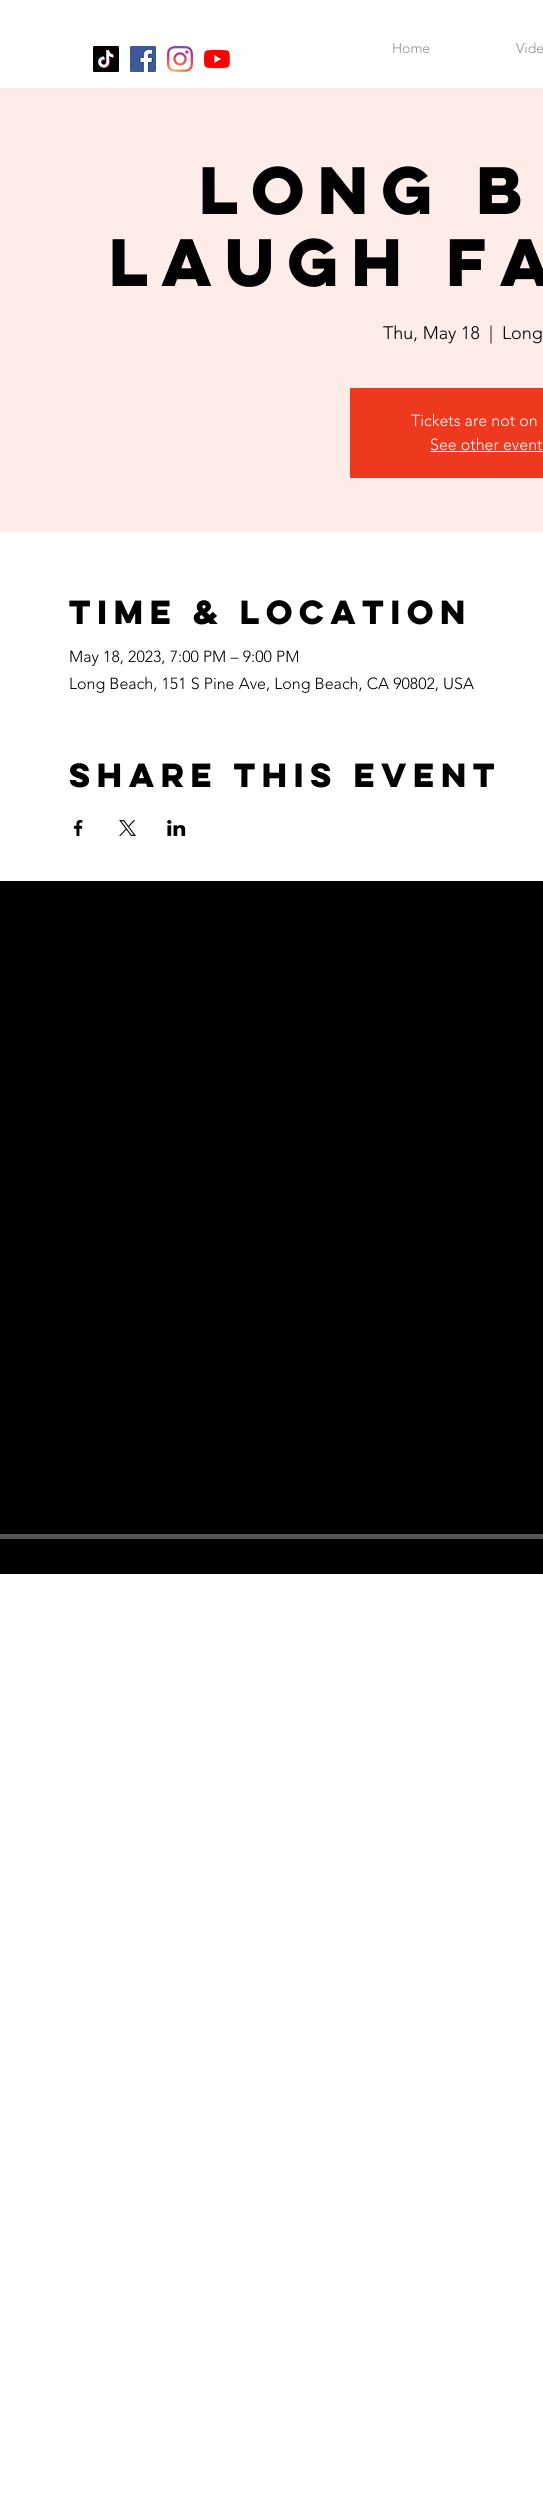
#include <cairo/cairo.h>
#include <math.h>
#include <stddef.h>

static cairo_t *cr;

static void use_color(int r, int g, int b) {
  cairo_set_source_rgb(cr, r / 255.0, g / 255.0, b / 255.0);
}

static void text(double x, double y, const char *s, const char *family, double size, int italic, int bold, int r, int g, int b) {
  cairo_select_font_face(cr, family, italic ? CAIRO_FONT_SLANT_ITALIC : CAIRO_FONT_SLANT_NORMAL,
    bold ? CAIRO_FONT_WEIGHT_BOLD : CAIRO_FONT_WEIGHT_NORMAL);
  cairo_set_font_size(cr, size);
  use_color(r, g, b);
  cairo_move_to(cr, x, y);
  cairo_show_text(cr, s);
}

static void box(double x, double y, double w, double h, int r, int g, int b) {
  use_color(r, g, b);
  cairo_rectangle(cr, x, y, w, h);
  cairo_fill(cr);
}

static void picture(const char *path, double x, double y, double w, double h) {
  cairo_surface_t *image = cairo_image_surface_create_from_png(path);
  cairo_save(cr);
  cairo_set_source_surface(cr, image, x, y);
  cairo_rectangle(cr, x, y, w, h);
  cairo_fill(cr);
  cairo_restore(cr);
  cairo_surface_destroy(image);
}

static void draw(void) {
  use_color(255, 255, 255);
  cairo_paint(cr);
  picture("img_01.png", 93, 46, 26, 26);
  picture("img_02.png", 130, 46, 26, 26);
  picture("img_03.png", 167, 46, 26, 26);
  picture("img_04.png", 204, 49, 26, 20);
  box(0, 88, 543, 444, 254, 236, 233);
  box(350, 388, 193, 90, 237, 58, 30);
  box(430, 451, 113, 1, 255, 255, 255);
  picture("img_05.png", 74, 820, 9, 16);
  picture("img_06.png", 119, 820, 17, 16);
  picture("img_07.png", 167, 820, 19, 16);
  box(0, 881, 543, 653, 0, 0, 0);
  box(0, 1534, 543, 5, 85, 85, 85);
  box(0, 1539, 543, 35, 0, 0, 0);
  text(392, 53, "Home", "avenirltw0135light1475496 Light", 14, 0, 0, 144, 144, 144);
  text(516, 53, "Vide", "avenirltw0135light1475496 Light", 14, 0, 0, 144, 144, 144);
  text(199, 214, "Long B", "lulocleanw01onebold", 60, 0, 1, 0, 0, 0);
  text(109, 286, "Laugh Fa", "lulocleanw01onebold", 60, 0, 1, 0, 0, 0);
  text(383, 339, "Thu, May 18", "avenirltw0135light1475496 Light", 18, 0, 0, 0, 0, 0);
  text(489, 339, "|", "avenirltw0135light1475496 Light", 18, 0, 0, 0, 0, 0);
  text(502, 339, "Long", "avenirltw0135light1475496 Light", 18, 0, 0, 0, 0, 0);
  text(411, 426, "Tickets are not on", "avenirltw0135light1475496 Light", 16, 0, 0, 255, 255, 255);
  text(430, 450, "See other event", "avenirltw0135light1475496 Light", 16, 0, 0, 255, 255, 255);
  text(69, 624, "Time & Location", "lulocleanw01onebold", 30, 0, 1, 0, 0, 0);
  text(69, 662, "May 18, 2023, 7:00 PM – 9:00 PM", "avenirltw0135light1475496 Light", 16, 0, 0, 0, 0, 0);
  text(69, 689, "Long Beach, 151 S Pine Ave, Long Beach, CA 90802, USA", "avenirltw0135light1475496 Light", 16, 0, 0, 0, 0, 0);
  text(69, 787, "Share this event", "lulocleanw01onebold", 30, 0, 1, 0, 0, 0);
}

int main(void) {
  cairo_surface_t *surface = cairo_image_surface_create(CAIRO_FORMAT_RGB24, 543, 2517);
  cr = cairo_create(surface);
  cairo_font_options_t *options = cairo_font_options_create();
  cairo_font_options_set_hint_metrics(options, CAIRO_HINT_METRICS_OFF);
  cairo_font_options_set_hint_style(options, CAIRO_HINT_STYLE_NONE);
  cairo_set_font_options(cr, options);
  cairo_set_miter_limit(cr, 4);
  draw();
  cairo_surface_write_to_png(surface, "out.png");
  cairo_font_options_destroy(options);
  cairo_destroy(cr);
  cairo_surface_destroy(surface);
  return 0;
}
